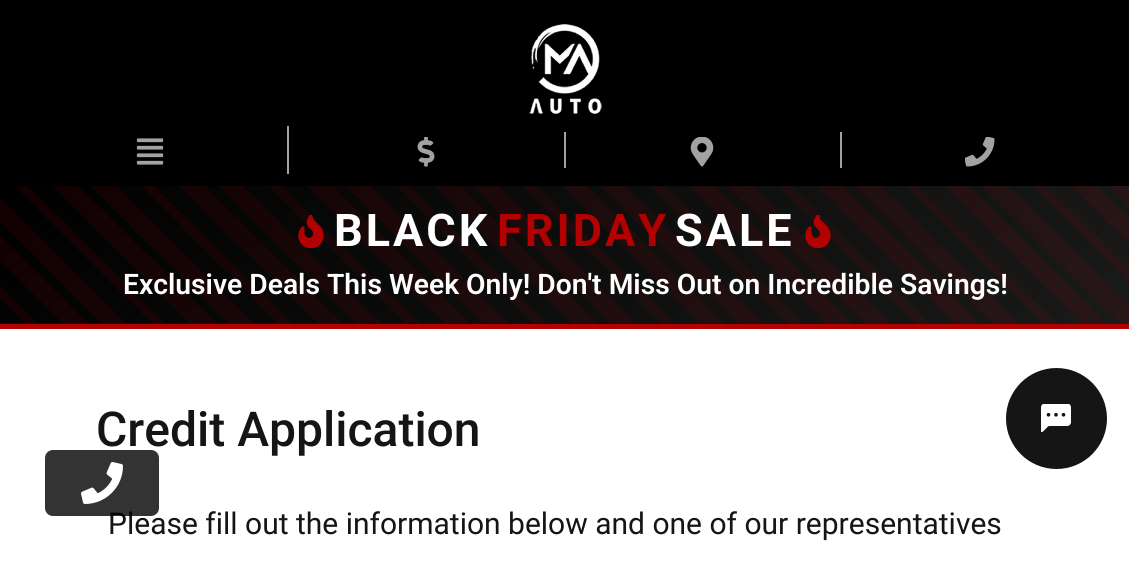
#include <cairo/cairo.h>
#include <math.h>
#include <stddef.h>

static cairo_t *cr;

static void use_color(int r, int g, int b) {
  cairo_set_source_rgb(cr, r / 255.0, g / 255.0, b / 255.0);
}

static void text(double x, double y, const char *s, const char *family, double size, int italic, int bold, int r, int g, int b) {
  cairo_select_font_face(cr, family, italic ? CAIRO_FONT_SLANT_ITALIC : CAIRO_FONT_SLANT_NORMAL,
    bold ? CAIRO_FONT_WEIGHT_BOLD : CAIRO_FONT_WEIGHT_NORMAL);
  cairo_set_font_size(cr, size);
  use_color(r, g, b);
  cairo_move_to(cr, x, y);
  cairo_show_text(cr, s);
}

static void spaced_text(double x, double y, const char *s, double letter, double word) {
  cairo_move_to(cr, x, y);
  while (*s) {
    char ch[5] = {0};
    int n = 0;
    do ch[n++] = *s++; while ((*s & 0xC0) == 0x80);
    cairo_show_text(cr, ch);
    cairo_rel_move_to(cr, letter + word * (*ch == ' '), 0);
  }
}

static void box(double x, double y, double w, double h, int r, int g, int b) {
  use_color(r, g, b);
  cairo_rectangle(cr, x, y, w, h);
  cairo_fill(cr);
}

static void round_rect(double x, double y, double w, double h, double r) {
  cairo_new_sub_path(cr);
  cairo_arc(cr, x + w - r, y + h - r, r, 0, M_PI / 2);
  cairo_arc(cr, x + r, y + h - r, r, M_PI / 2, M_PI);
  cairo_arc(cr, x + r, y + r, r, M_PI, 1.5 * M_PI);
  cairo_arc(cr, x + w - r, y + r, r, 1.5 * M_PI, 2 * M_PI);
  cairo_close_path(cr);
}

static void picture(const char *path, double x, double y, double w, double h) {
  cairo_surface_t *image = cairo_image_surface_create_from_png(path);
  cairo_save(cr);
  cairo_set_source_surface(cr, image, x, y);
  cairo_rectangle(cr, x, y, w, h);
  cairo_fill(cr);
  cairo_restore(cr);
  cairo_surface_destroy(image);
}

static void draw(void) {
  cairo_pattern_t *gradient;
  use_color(255, 255, 255);
  cairo_paint(cr);
  box(0, 0, 1129, 186, 0, 0, 0);
  picture("img_01.png", 529, 24, 73, 90);
  box(287, 126, 2, 48, 162, 162, 162);
  picture("img_02.png", 136, 138, 28, 27);
  box(564, 132, 2, 36, 162, 162, 162);
  picture("img_03.png", 417, 137, 18, 30);
  box(840, 132, 2, 36, 162, 162, 162);
  picture("img_04.png", 690, 137, 24, 30);
  picture("img_05.png", 965, 137, 30, 30);
  gradient = cairo_pattern_create_linear(248, -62, 882, 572);
  cairo_pattern_add_color_stop_rgba(gradient, 0, 0, 0, 0, 1);
  cairo_pattern_add_color_stop_rgba(gradient, 1, 0.102, 0.102, 0.102, 1);
  cairo_set_source(cr, gradient);
  cairo_pattern_destroy(gradient);
  cairo_rectangle(cr, 0, 186, 1129, 138);
  cairo_fill(cr);
  box(0, 324, 1129, 5, 179, 0, 0);
  gradient = cairo_pattern_create_linear(248, 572, 884, -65);
  cairo_pattern_add_color_stop_rgba(gradient, 0, 0, 0, 0, 0);
  cairo_pattern_add_color_stop_rgba(gradient, 0.02, 0.702, 0, 0, 0);
  cairo_pattern_add_color_stop_rgba(gradient, 0.02, 0.702, 0, 0, 0.1);
  cairo_pattern_add_color_stop_rgba(gradient, 0.03, 0.702, 0, 0, 0.1);
  cairo_pattern_add_color_stop_rgba(gradient, 0.03, 0.702, 0, 0, 0);
  cairo_pattern_add_color_stop_rgba(gradient, 0.05, 0.702, 0, 0, 0);
  cairo_pattern_add_color_stop_rgba(gradient, 0.05, 0.702, 0, 0, 0.1);
  cairo_pattern_add_color_stop_rgba(gradient, 0.07, 0.702, 0, 0, 0.1);
  cairo_pattern_add_color_stop_rgba(gradient, 0.07, 0.702, 0, 0, 0);
  cairo_pattern_add_color_stop_rgba(gradient, 0.08, 0.702, 0, 0, 0);
  cairo_pattern_add_color_stop_rgba(gradient, 0.08, 0.702, 0, 0, 0.1);
  cairo_pattern_add_color_stop_rgba(gradient, 0.1, 0.702, 0, 0, 0.1);
  cairo_pattern_add_color_stop_rgba(gradient, 0.1, 0.702, 0, 0, 0);
  cairo_pattern_add_color_stop_rgba(gradient, 0.12, 0.702, 0, 0, 0);
  cairo_pattern_add_color_stop_rgba(gradient, 0.12, 0.702, 0, 0, 0.1);
  cairo_pattern_add_color_stop_rgba(gradient, 0.13, 0.702, 0, 0, 0.1);
  cairo_pattern_add_color_stop_rgba(gradient, 0.13, 0.702, 0, 0, 0);
  cairo_pattern_add_color_stop_rgba(gradient, 0.15, 0.702, 0, 0, 0);
  cairo_pattern_add_color_stop_rgba(gradient, 0.15, 0.702, 0, 0, 0.1);
  cairo_pattern_add_color_stop_rgba(gradient, 0.17, 0.702, 0, 0, 0.1);
  cairo_pattern_add_color_stop_rgba(gradient, 0.17, 0.702, 0, 0, 0);
  cairo_pattern_add_color_stop_rgba(gradient, 0.18, 0.702, 0, 0, 0);
  cairo_pattern_add_color_stop_rgba(gradient, 0.18, 0.702, 0, 0, 0.1);
  cairo_pattern_add_color_stop_rgba(gradient, 0.2, 0.702, 0, 0, 0.1);
  cairo_pattern_add_color_stop_rgba(gradient, 0.2, 0.702, 0, 0, 0);
  cairo_pattern_add_color_stop_rgba(gradient, 0.22, 0.702, 0, 0, 0);
  cairo_pattern_add_color_stop_rgba(gradient, 0.22, 0.702, 0, 0, 0.1);
  cairo_pattern_add_color_stop_rgba(gradient, 0.23, 0.702, 0, 0, 0.1);
  cairo_pattern_add_color_stop_rgba(gradient, 0.23, 0.702, 0, 0, 0);
  cairo_pattern_add_color_stop_rgba(gradient, 0.25, 0.702, 0, 0, 0);
  cairo_pattern_add_color_stop_rgba(gradient, 0.25, 0.702, 0, 0, 0.1);
  cairo_pattern_add_color_stop_rgba(gradient, 0.27, 0.702, 0, 0, 0.1);
  cairo_pattern_add_color_stop_rgba(gradient, 0.27, 0.702, 0, 0, 0);
  cairo_pattern_add_color_stop_rgba(gradient, 0.28, 0.702, 0, 0, 0);
  cairo_pattern_add_color_stop_rgba(gradient, 0.28, 0.702, 0, 0, 0.1);
  cairo_pattern_add_color_stop_rgba(gradient, 0.3, 0.702, 0, 0, 0.1);
  cairo_pattern_add_color_stop_rgba(gradient, 0.3, 0.702, 0, 0, 0);
  cairo_pattern_add_color_stop_rgba(gradient, 0.32, 0.702, 0, 0, 0);
  cairo_pattern_add_color_stop_rgba(gradient, 0.32, 0.702, 0, 0, 0.1);
  cairo_pattern_add_color_stop_rgba(gradient, 0.33, 0.702, 0, 0, 0.1);
  cairo_pattern_add_color_stop_rgba(gradient, 0.33, 0.702, 0, 0, 0);
  cairo_pattern_add_color_stop_rgba(gradient, 0.35, 0.702, 0, 0, 0);
  cairo_pattern_add_color_stop_rgba(gradient, 0.35, 0.702, 0, 0, 0.1);
  cairo_pattern_add_color_stop_rgba(gradient, 0.37, 0.702, 0, 0, 0.1);
  cairo_pattern_add_color_stop_rgba(gradient, 0.37, 0.702, 0, 0, 0);
  cairo_pattern_add_color_stop_rgba(gradient, 0.38, 0.702, 0, 0, 0);
  cairo_pattern_add_color_stop_rgba(gradient, 0.38, 0.702, 0, 0, 0.1);
  cairo_pattern_add_color_stop_rgba(gradient, 0.4, 0.702, 0, 0, 0.1);
  cairo_pattern_add_color_stop_rgba(gradient, 0.4, 0.702, 0, 0, 0);
  cairo_pattern_add_color_stop_rgba(gradient, 0.42, 0.702, 0, 0, 0);
  cairo_pattern_add_color_stop_rgba(gradient, 0.42, 0.702, 0, 0, 0.1);
  cairo_pattern_add_color_stop_rgba(gradient, 0.43, 0.702, 0, 0, 0.1);
  cairo_pattern_add_color_stop_rgba(gradient, 0.43, 0.702, 0, 0, 0);
  cairo_pattern_add_color_stop_rgba(gradient, 0.45, 0.702, 0, 0, 0);
  cairo_pattern_add_color_stop_rgba(gradient, 0.45, 0.702, 0, 0, 0.1);
  cairo_pattern_add_color_stop_rgba(gradient, 0.47, 0.702, 0, 0, 0.1);
  cairo_pattern_add_color_stop_rgba(gradient, 0.47, 0.702, 0, 0, 0);
  cairo_pattern_add_color_stop_rgba(gradient, 0.48, 0.702, 0, 0, 0);
  cairo_pattern_add_color_stop_rgba(gradient, 0.48, 0.702, 0, 0, 0.1);
  cairo_pattern_add_color_stop_rgba(gradient, 0.5, 0.702, 0, 0, 0.1);
  cairo_pattern_add_color_stop_rgba(gradient, 0.5, 0.702, 0, 0, 0);
  cairo_pattern_add_color_stop_rgba(gradient, 0.52, 0.702, 0, 0, 0);
  cairo_pattern_add_color_stop_rgba(gradient, 0.52, 0.702, 0, 0, 0.1);
  cairo_pattern_add_color_stop_rgba(gradient, 0.53, 0.702, 0, 0, 0.1);
  cairo_pattern_add_color_stop_rgba(gradient, 0.53, 0.702, 0, 0, 0);
  cairo_pattern_add_color_stop_rgba(gradient, 0.55, 0.702, 0, 0, 0);
  cairo_pattern_add_color_stop_rgba(gradient, 0.55, 0.702, 0, 0, 0.1);
  cairo_pattern_add_color_stop_rgba(gradient, 0.57, 0.702, 0, 0, 0.1);
  cairo_pattern_add_color_stop_rgba(gradient, 0.57, 0.702, 0, 0, 0);
  cairo_pattern_add_color_stop_rgba(gradient, 0.58, 0.702, 0, 0, 0);
  cairo_pattern_add_color_stop_rgba(gradient, 0.58, 0.702, 0, 0, 0.1);
  cairo_pattern_add_color_stop_rgba(gradient, 0.6, 0.702, 0, 0, 0.1);
  cairo_pattern_add_color_stop_rgba(gradient, 0.6, 0.702, 0, 0, 0);
  cairo_pattern_add_color_stop_rgba(gradient, 0.62, 0.702, 0, 0, 0);
  cairo_pattern_add_color_stop_rgba(gradient, 0.62, 0.702, 0, 0, 0.1);
  cairo_pattern_add_color_stop_rgba(gradient, 0.63, 0.702, 0, 0, 0.1);
  cairo_pattern_add_color_stop_rgba(gradient, 0.63, 0.702, 0, 0, 0);
  cairo_pattern_add_color_stop_rgba(gradient, 0.65, 0.702, 0, 0, 0);
  cairo_pattern_add_color_stop_rgba(gradient, 0.65, 0.702, 0, 0, 0.1);
  cairo_pattern_add_color_stop_rgba(gradient, 0.67, 0.702, 0, 0, 0.1);
  cairo_pattern_add_color_stop_rgba(gradient, 0.67, 0.702, 0, 0, 0);
  cairo_pattern_add_color_stop_rgba(gradient, 0.68, 0.702, 0, 0, 0);
  cairo_pattern_add_color_stop_rgba(gradient, 0.68, 0.702, 0, 0, 0.1);
  cairo_pattern_add_color_stop_rgba(gradient, 0.7, 0.702, 0, 0, 0.1);
  cairo_pattern_add_color_stop_rgba(gradient, 0.7, 0.702, 0, 0, 0);
  cairo_pattern_add_color_stop_rgba(gradient, 0.72, 0.702, 0, 0, 0);
  cairo_pattern_add_color_stop_rgba(gradient, 0.72, 0.702, 0, 0, 0.1);
  cairo_pattern_add_color_stop_rgba(gradient, 0.73, 0.702, 0, 0, 0.1);
  cairo_pattern_add_color_stop_rgba(gradient, 0.73, 0.702, 0, 0, 0);
  cairo_pattern_add_color_stop_rgba(gradient, 0.75, 0.702, 0, 0, 0);
  cairo_pattern_add_color_stop_rgba(gradient, 0.75, 0.702, 0, 0, 0.1);
  cairo_pattern_add_color_stop_rgba(gradient, 0.77, 0.702, 0, 0, 0.1);
  cairo_pattern_add_color_stop_rgba(gradient, 0.77, 0.702, 0, 0, 0);
  cairo_pattern_add_color_stop_rgba(gradient, 0.78, 0.702, 0, 0, 0);
  cairo_pattern_add_color_stop_rgba(gradient, 0.78, 0.702, 0, 0, 0.1);
  cairo_pattern_add_color_stop_rgba(gradient, 0.8, 0.702, 0, 0, 0.1);
  cairo_pattern_add_color_stop_rgba(gradient, 0.8, 0.702, 0, 0, 0);
  cairo_pattern_add_color_stop_rgba(gradient, 0.82, 0.702, 0, 0, 0);
  cairo_pattern_add_color_stop_rgba(gradient, 0.82, 0.702, 0, 0, 0.1);
  cairo_pattern_add_color_stop_rgba(gradient, 0.83, 0.702, 0, 0, 0.1);
  cairo_pattern_add_color_stop_rgba(gradient, 0.83, 0.702, 0, 0, 0);
  cairo_pattern_add_color_stop_rgba(gradient, 0.85, 0.702, 0, 0, 0);
  cairo_pattern_add_color_stop_rgba(gradient, 0.85, 0.702, 0, 0, 0.1);
  cairo_pattern_add_color_stop_rgba(gradient, 0.87, 0.702, 0, 0, 0.1);
  cairo_pattern_add_color_stop_rgba(gradient, 0.87, 0.702, 0, 0, 0);
  cairo_pattern_add_color_stop_rgba(gradient, 0.88, 0.702, 0, 0, 0);
  cairo_pattern_add_color_stop_rgba(gradient, 0.88, 0.702, 0, 0, 0.1);
  cairo_pattern_add_color_stop_rgba(gradient, 0.9, 0.702, 0, 0, 0.1);
  cairo_pattern_add_color_stop_rgba(gradient, 0.9, 0.702, 0, 0, 0);
  cairo_pattern_add_color_stop_rgba(gradient, 0.92, 0.702, 0, 0, 0);
  cairo_pattern_add_color_stop_rgba(gradient, 0.92, 0.702, 0, 0, 0.1);
  cairo_pattern_add_color_stop_rgba(gradient, 0.93, 0.702, 0, 0, 0.1);
  cairo_pattern_add_color_stop_rgba(gradient, 0.93, 0.702, 0, 0, 0);
  cairo_pattern_add_color_stop_rgba(gradient, 0.95, 0.702, 0, 0, 0);
  cairo_pattern_add_color_stop_rgba(gradient, 0.95, 0.702, 0, 0, 0.1);
  cairo_pattern_add_color_stop_rgba(gradient, 0.97, 0.702, 0, 0, 0.1);
  cairo_pattern_add_color_stop_rgba(gradient, 0.97, 0.702, 0, 0, 0);
  cairo_pattern_add_color_stop_rgba(gradient, 0.98, 0.702, 0, 0, 0);
  cairo_pattern_add_color_stop_rgba(gradient, 0.98, 0.702, 0, 0, 0.1);
  cairo_pattern_add_color_stop_rgba(gradient, 1, 0.702, 0, 0, 0.1);
  cairo_set_source(cr, gradient);
  cairo_pattern_destroy(gradient);
  cairo_rectangle(cr, 0, 186, 1129, 138);
  cairo_fill(cr);
  picture("img_06.png", 298, 215, 26, 33);
  picture("img_07.png", 805, 215, 26, 33);
  use_color(21, 21, 21);
  cairo_arc(cr, 1056.5, 418.5, 51.5, 0, 2 * M_PI);
  cairo_fill_preserve(cr);
  use_color(255, 255, 255);
  cairo_stroke(cr);
  picture("img_09.png", 1041, 404, 30, 29);
  cairo_select_font_face(cr, "Roboto", CAIRO_FONT_SLANT_NORMAL, CAIRO_FONT_WEIGHT_BOLD);
  cairo_set_font_size(cr, 45);
  spaced_text(334, 246, "BLACK", 3, 0);
  use_color(179, 0, 0);
  spaced_text(497, 246, "FRIDAY", 3, 0);
  use_color(255, 255, 255);
  spaced_text(675, 246, "SALE", 3, 0);
  text(123, 294, "Exclusive Deals This Week Only! Don't Miss Out on Incredible Savings!", "Roboto SemiBold", 28.25, 0, 0, 255, 255, 255);
  text(96, 446, "Credit Application", "Roboto Medium", 48, 0, 0, 21, 21, 21);
  text(108, 534, "Please fill out the information below and one of our representatives", "Roboto", 30, 0, 0, 21, 21, 21);
  cairo_set_source_rgba(cr, 0, 0, 0, 0.8);
  round_rect(45, 450, 114, 66, 8);
  cairo_fill(cr);
  picture("img_08.png", 81, 462, 42, 42);
}

int main(void) {
  cairo_surface_t *surface = cairo_image_surface_create(CAIRO_FORMAT_RGB24, 1129, 561);
  cr = cairo_create(surface);
  cairo_font_options_t *options = cairo_font_options_create();
  cairo_font_options_set_hint_metrics(options, CAIRO_HINT_METRICS_OFF);
  cairo_font_options_set_hint_style(options, CAIRO_HINT_STYLE_NONE);
  cairo_set_font_options(cr, options);
  cairo_set_miter_limit(cr, 4);
  draw();
  cairo_surface_write_to_png(surface, "out.png");
  cairo_font_options_destroy(options);
  cairo_destroy(cr);
  cairo_surface_destroy(surface);
  return 0;
}
